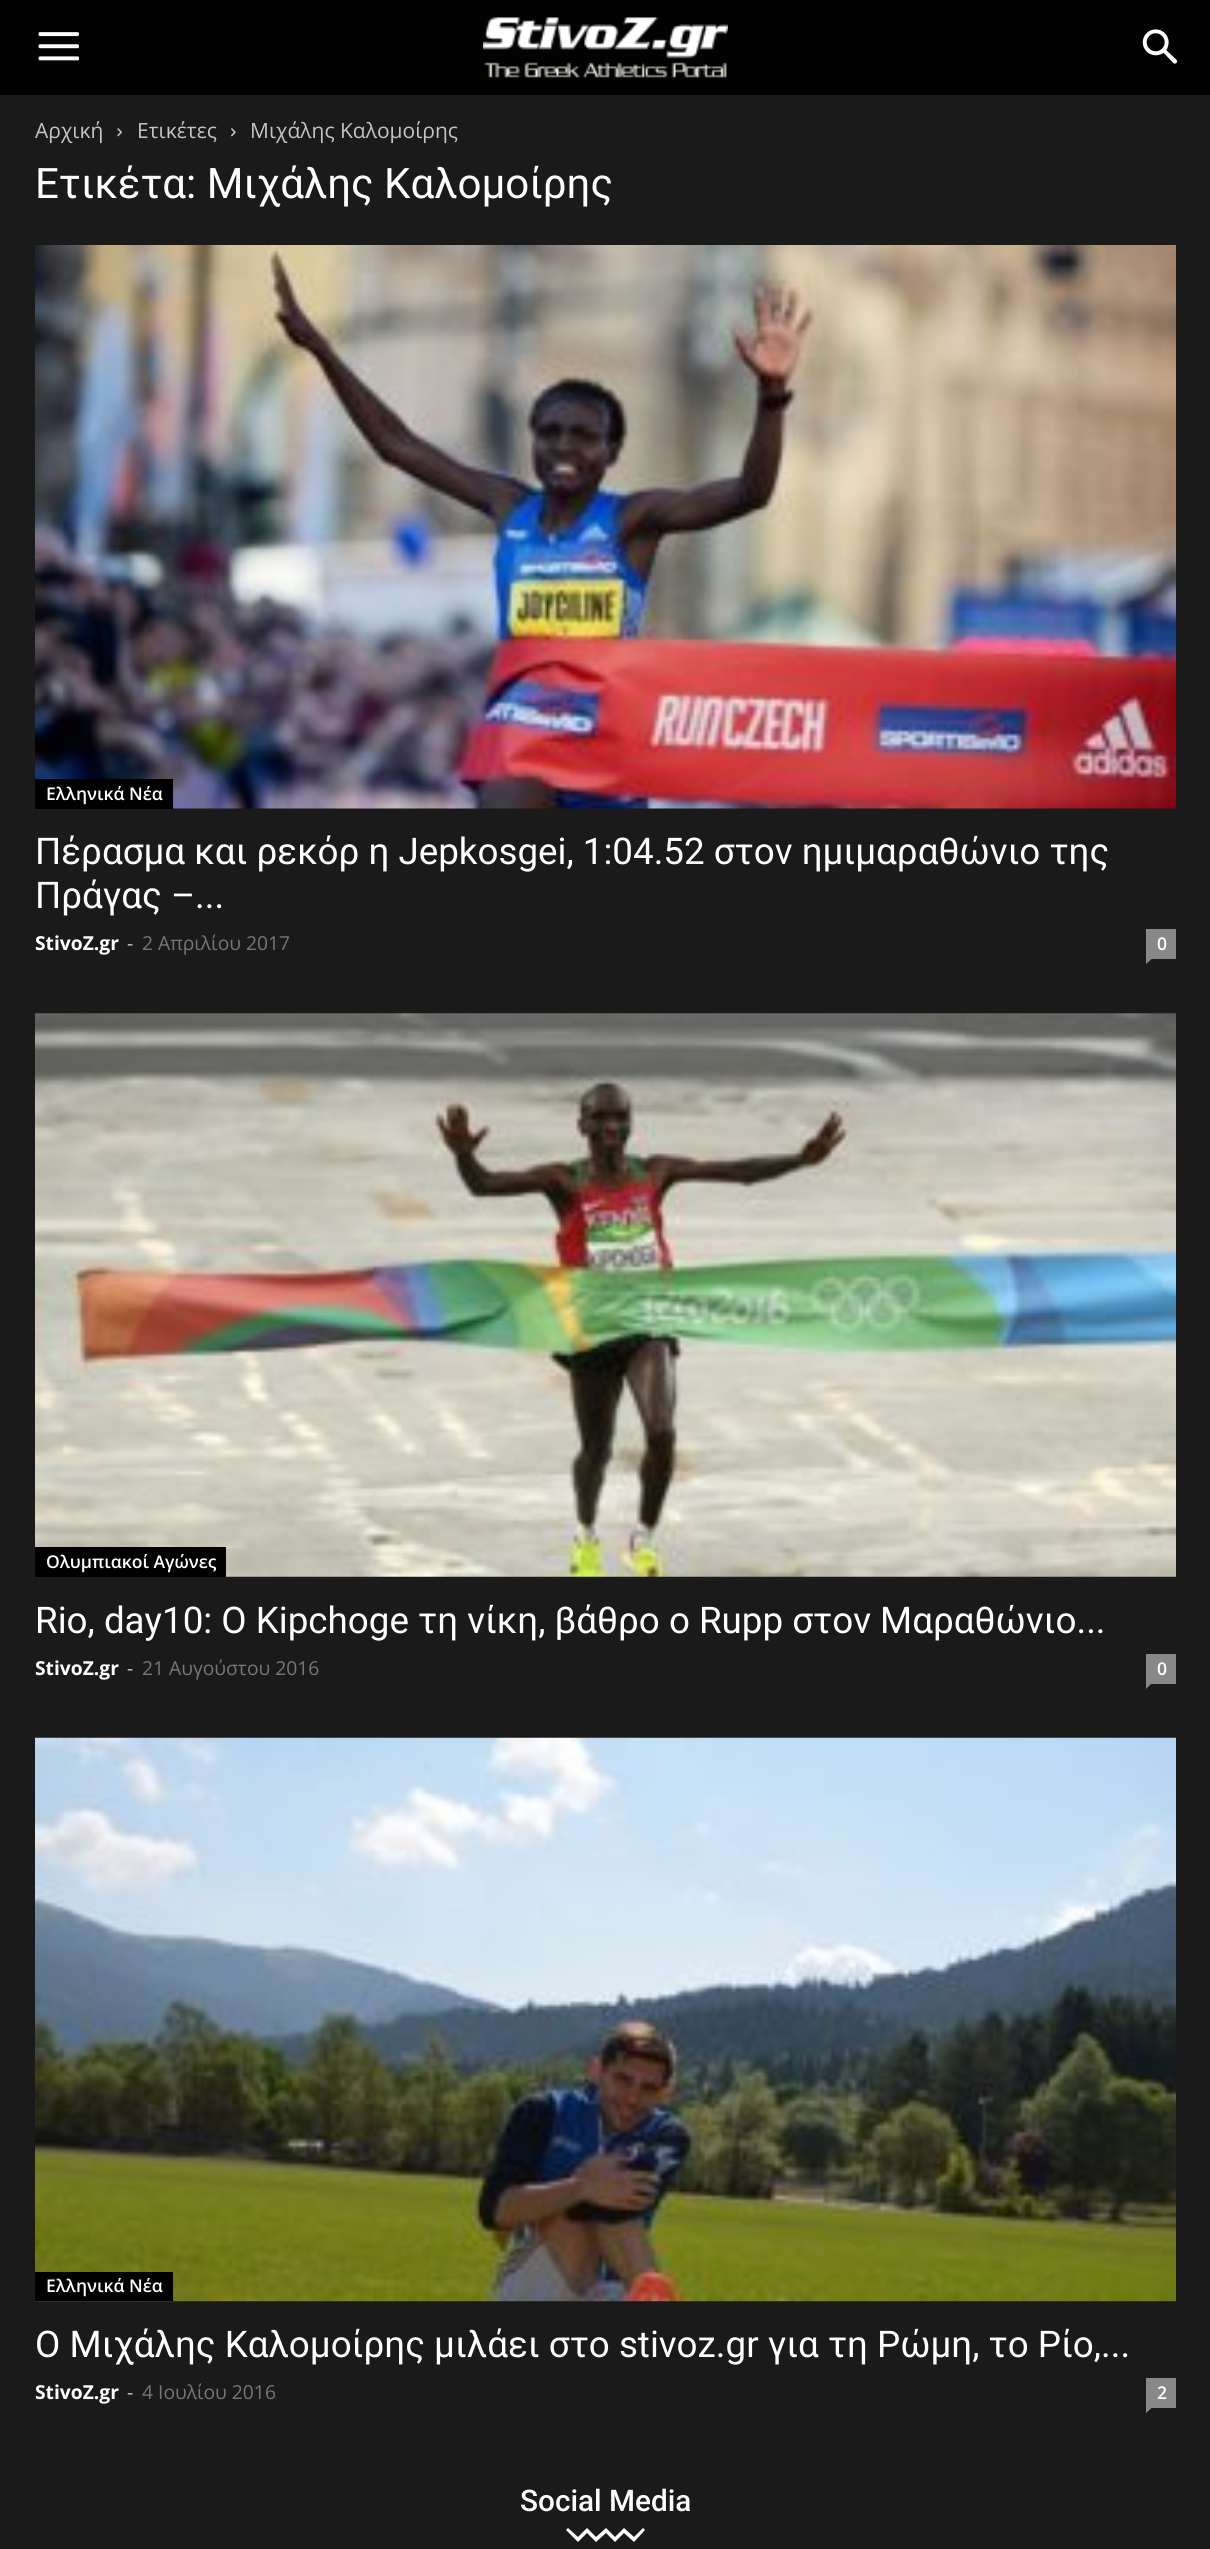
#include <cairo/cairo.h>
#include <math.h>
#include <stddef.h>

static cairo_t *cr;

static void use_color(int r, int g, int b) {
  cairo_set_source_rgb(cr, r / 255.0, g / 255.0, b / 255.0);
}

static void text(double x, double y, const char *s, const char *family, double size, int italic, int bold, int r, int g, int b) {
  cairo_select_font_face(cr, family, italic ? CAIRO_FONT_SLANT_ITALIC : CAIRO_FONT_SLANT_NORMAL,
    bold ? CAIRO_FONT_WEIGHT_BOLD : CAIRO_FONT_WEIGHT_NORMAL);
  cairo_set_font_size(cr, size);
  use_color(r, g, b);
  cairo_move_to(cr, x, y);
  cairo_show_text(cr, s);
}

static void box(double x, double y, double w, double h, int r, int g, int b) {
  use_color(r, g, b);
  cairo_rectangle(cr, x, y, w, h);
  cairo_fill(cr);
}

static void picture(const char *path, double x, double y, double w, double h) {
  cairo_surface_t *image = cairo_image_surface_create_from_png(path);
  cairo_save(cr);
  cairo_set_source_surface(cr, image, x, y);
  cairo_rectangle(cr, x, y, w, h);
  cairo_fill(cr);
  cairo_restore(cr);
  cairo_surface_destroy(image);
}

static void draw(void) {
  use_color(26, 26, 26);
  cairo_paint(cr);
  box(0, 0, 1210, 95, 2, 2, 2);
  picture("img_01.png", 38, 32, 41, 29);
  picture("img_02.png", 483, 17, 245, 61);
  picture("img_03.png", 1142, 29, 36, 35);
  picture("img_04.png", 117, 128, 5, 9);
  picture("img_05.png", 231, 128, 5, 9);
  picture("img_06.png", 35, 245, 1141, 564);
  box(35, 779, 138, 30, 0, 0, 0);
  box(1146, 929, 30, 30, 136, 136, 136);
  cairo_new_path(cr);
  cairo_move_to(cr, 1146, 959);
  cairo_line_to(cr, 1151.5, 959);
  cairo_line_to(cr, 1146, 964);
  cairo_close_path(cr);
  cairo_fill(cr);
  picture("img_07.png", 35, 1013, 1141, 564);
  box(35, 1547, 191, 30, 0, 0, 0);
  box(1146, 1654, 30, 30, 136, 136, 136);
  cairo_new_path(cr);
  cairo_move_to(cr, 1146, 1683.5);
  cairo_line_to(cr, 1151.5, 1683.5);
  cairo_line_to(cr, 1146, 1689);
  cairo_close_path(cr);
  cairo_fill(cr);
  picture("img_08.png", 35, 1737, 1141, 565);
  box(35, 2272, 138, 29, 0, 0, 0);
  box(1146, 2378, 30, 30, 136, 136, 136);
  cairo_new_path(cr);
  cairo_move_to(cr, 1146, 2408);
  cairo_line_to(cr, 1151.5, 2408);
  cairo_line_to(cr, 1146, 2413);
  cairo_close_path(cr);
  cairo_fill(cr);
  use_color(255, 255, 255);
  cairo_new_path(cr);
  cairo_move_to(cr, 645, 2530);
  cairo_line_to(cr, 634, 2542);
  cairo_line_to(cr, 624, 2533);
  cairo_line_to(cr, 615, 2542);
  cairo_line_to(cr, 606, 2533);
  cairo_line_to(cr, 596, 2542);
  cairo_line_to(cr, 587, 2533);
  cairo_line_to(cr, 578, 2542);
  cairo_line_to(cr, 566, 2530);
  cairo_line_to(cr, 568, 2528);
  cairo_line_to(cr, 578, 2537);
  cairo_line_to(cr, 587, 2528);
  cairo_line_to(cr, 596, 2537);
  cairo_line_to(cr, 606, 2528);
  cairo_line_to(cr, 615, 2537);
  cairo_line_to(cr, 624, 2528);
  cairo_line_to(cr, 634, 2537);
  cairo_line_to(cr, 643, 2528);
  cairo_close_path(cr);
  cairo_fill(cr);
  text(35, 138, "Αρχική", "Open Sans", 21, 0, 0, 195, 195, 195);
  text(137, 138, "Ετικέτες", "Open Sans", 21, 0, 0, 195, 195, 195);
  text(250, 138, "Μιχάλης Καλομοίρης", "Open Sans", 21, 0, 0, 195, 195, 195);
  text(35, 198, "Ετικέτα: Μιχάλης Καλομοίρης", "Roboto", 42, 0, 0, 255, 255, 255);
  text(46, 800, "Ελληνικά Νέα", "Open Sans SemiBold", 17.5, 0, 0, 255, 255, 255);
  text(35, 864, "Πέρασμα και ρεκόρ η Jepkosgei, 1:04.52 στον ημιμαραθώνιο της", "Roboto", 36.75, 0, 0, 255, 255, 255);
  text(35, 908, "Πράγας –...", "Roboto", 36.75, 0, 0, 255, 255, 255);
  text(35, 950, "StivoZ.gr", "Open Sans", 19.25, 0, 1, 255, 255, 255);
  text(127, 950, "-", "Open Sans", 19.25, 0, 0, 204, 204, 204);
  text(142, 950, "2 Απριλίου 2017", "Open Sans", 19.25, 0, 0, 118, 118, 118);
  text(1157, 950, "0", "Open Sans SemiBold", 17.5, 0, 0, 255, 255, 255);
  text(46, 1568, "Ολυμπιακοί Αγώνες", "Open Sans SemiBold", 17.5, 0, 0, 255, 255, 255);
  text(35, 1633, "Rio, day10: O Kipchoge τη νίκη, βάθρο ο Rupp στον Μαραθώνιο...", "Roboto", 36.75, 0, 0, 255, 255, 255);
  text(35, 1675, "StivoZ.gr", "Open Sans", 19.25, 0, 1, 255, 255, 255);
  text(127, 1675, "-", "Open Sans", 19.25, 0, 0, 204, 204, 204);
  text(142, 1675, "21 Αυγούστου 2016", "Open Sans", 19.25, 0, 0, 118, 118, 118);
  text(1157, 1675, "0", "Open Sans SemiBold", 17.5, 0, 0, 255, 255, 255);
  text(46, 2292, "Ελληνικά Νέα", "Open Sans SemiBold", 17.5, 0, 0, 255, 255, 255);
  text(35, 2357, "Ο Μιχάλης Καλομοίρης μιλάει στο stivoz.gr για τη Ρώμη, το Ρίο,...", "Roboto", 36.75, 0, 0, 255, 255, 255);
  text(35, 2399, "StivoZ.gr", "Open Sans", 19.25, 0, 1, 255, 255, 255);
  text(127, 2399, "-", "Open Sans", 19.25, 0, 0, 204, 204, 204);
  text(142, 2399, "4 Ιουλίου 2016", "Open Sans", 19.25, 0, 0, 118, 118, 118);
  text(1157, 2399, "2", "Open Sans SemiBold", 17.5, 0, 0, 255, 255, 255);
  text(520, 2511, "Social Media", "Roboto Medium", 29.75, 0, 0, 255, 255, 255);
}

int main(void) {
  cairo_surface_t *surface = cairo_image_surface_create(CAIRO_FORMAT_RGB24, 1210, 2549);
  cr = cairo_create(surface);
  cairo_font_options_t *options = cairo_font_options_create();
  cairo_font_options_set_hint_metrics(options, CAIRO_HINT_METRICS_OFF);
  cairo_font_options_set_hint_style(options, CAIRO_HINT_STYLE_NONE);
  cairo_set_font_options(cr, options);
  cairo_set_miter_limit(cr, 4);
  draw();
  cairo_surface_write_to_png(surface, "out.png");
  cairo_font_options_destroy(options);
  cairo_destroy(cr);
  cairo_surface_destroy(surface);
  return 0;
}
